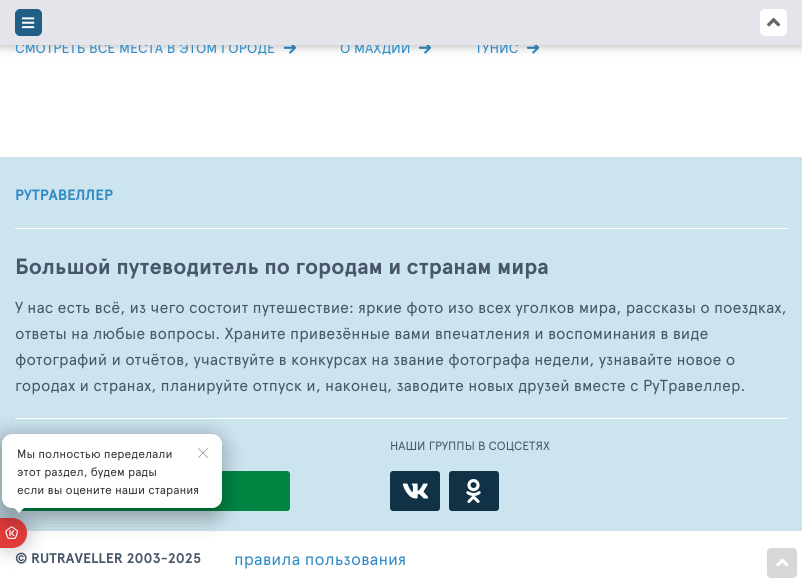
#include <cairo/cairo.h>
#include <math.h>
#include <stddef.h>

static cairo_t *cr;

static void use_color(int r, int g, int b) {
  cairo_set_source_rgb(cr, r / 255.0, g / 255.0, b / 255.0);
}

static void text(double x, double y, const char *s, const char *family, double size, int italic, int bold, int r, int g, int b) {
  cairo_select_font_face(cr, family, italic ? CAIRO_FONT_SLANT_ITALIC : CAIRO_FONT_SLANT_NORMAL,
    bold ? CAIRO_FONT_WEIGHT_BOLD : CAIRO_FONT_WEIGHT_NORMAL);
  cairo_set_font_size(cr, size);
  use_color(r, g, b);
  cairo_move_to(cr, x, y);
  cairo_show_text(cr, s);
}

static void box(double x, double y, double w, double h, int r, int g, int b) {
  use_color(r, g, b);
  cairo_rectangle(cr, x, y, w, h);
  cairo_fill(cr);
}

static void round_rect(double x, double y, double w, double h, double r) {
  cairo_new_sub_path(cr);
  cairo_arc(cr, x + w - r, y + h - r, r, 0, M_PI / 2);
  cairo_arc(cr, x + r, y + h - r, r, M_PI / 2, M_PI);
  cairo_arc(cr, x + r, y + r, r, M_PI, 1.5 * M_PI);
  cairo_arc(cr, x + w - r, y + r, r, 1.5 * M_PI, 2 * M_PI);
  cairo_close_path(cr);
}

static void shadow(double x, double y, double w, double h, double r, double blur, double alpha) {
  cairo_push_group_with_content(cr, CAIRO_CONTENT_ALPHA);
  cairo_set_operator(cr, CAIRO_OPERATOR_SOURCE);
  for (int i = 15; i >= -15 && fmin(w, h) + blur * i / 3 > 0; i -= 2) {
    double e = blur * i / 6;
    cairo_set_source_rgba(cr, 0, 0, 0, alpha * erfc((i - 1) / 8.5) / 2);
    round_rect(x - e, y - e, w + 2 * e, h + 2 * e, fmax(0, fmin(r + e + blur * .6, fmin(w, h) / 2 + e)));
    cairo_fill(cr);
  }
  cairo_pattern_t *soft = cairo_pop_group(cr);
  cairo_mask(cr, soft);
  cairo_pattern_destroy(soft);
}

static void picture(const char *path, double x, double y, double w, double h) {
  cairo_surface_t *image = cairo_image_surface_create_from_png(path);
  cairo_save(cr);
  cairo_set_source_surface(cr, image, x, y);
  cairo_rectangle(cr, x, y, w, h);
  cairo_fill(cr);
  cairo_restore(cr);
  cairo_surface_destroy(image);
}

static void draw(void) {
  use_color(255, 255, 255);
  cairo_paint(cr);
  picture("img_03.png", 284, 45, 13, 9);
  picture("img_03.png", 419, 45, 13, 9);
  picture("img_03.png", 527, 45, 13, 9);
  use_color(0, 0, 0);
  shadow(0, 2, 802, 45, 0, 5, 0.25);
  box(0, 157, 802, 374, 204, 228, 238);
  box(15, 228, 772, 1, 255, 255, 255);
  box(15, 418, 772, 1, 255, 255, 255);
  use_color(17, 50, 70);
  round_rect(390, 471, 50, 40, 3);
  cairo_fill(cr);
  picture("img_04.png", 402, 483, 27, 16);
  round_rect(449, 471, 50, 40, 3);
  cairo_fill(cr);
  picture("img_05.png", 466, 479, 15, 24);
  use_color(0, 133, 67);
  round_rect(15.5, 471.5, 274, 39, 2.5);
  cairo_fill_preserve(cr);
  cairo_set_line_width(cr, 1);
  cairo_stroke(cr);
  use_color(0, 0, 0);
  shadow(-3, 518, 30, 30, 15, 10, 0.25);
  use_color(224, 58, 58);
  cairo_new_path(cr);
  cairo_move_to(cr, -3, 518);
  cairo_line_to(cr, 12, 518);
  cairo_curve_to(cr, 20.5, 518, 27, 524.5, 27, 533);
  cairo_curve_to(cr, 27, 541.5, 20.5, 548, 12, 548);
  cairo_line_to(cr, -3, 548);
  cairo_close_path(cr);
  cairo_fill(cr);
  picture("img_07.png", 5, 526, 13, 13);
  use_color(0, 0, 0);
  shadow(-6, 435, 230, 84, 15, 10, 0.3);
  use_color(255, 255, 255);
  round_rect(2, 434, 220, 74, 10);
  cairo_fill(cr);
  picture("img_06.png", 198, 448, 10, 10);
  cairo_new_path(cr);
  cairo_move_to(cr, 9, 503);
  cairo_line_to(cr, 29, 503);
  cairo_line_to(cr, 19, 513);
  cairo_close_path(cr);
  cairo_fill(cr);
  use_color(215, 215, 215);
  round_rect(767, 548, 30, 30, 4);
  cairo_fill(cr);
  picture("img_08.png", 776, 558, 13, 9);
  text(15, 53, "СМОТРЕТЬ ВСЕ МЕСТА В ЭТОМ ГОРОДЕ", "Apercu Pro", 14, 0, 0, 49, 140, 198);
  text(340, 53, "О МАХДИИ", "Apercu Pro", 14, 0, 0, 49, 140, 198);
  text(475, 53, "ТУНИС", "Apercu Pro", 14, 0, 0, 49, 140, 198);
  box(0, 0, 802, 45, 228, 229, 234);
  use_color(33, 95, 134);
  round_rect(15.5, 9.5, 26, 26, 4.5);
  cairo_fill_preserve(cr);
  cairo_stroke(cr);
  picture("img_01.png", 22, 17, 13, 12);
  use_color(255, 255, 255);
  round_rect(760, 9, 27, 27, 5);
  cairo_fill(cr);
  picture("img_02.png", 767, 17, 14, 10);
  text(15, 200, "РУТРАВЕЛЛЕР", "Apercu Pro", 15, 0, 1, 49, 140, 198);
  text(15, 274, "Большой путеводитель по городам и странам мира", "Apercu Pro", 22, 0, 1, 71, 86, 105);
  text(15, 313, "У нас есть всё, из чего состоит путешествие: яркие фото изо всех уголков мира, рассказы о поездках,", "Apercu Pro", 16, 0, 0, 71, 86, 105);
  text(15, 339, "ответы на любые вопросы. Храните привезённые вами впечатления и воспоминания в виде", "Apercu Pro", 16, 0, 0, 71, 86, 105);
  text(15, 365, "фотографий и отчётов, участвуйте в конкурсах на звание фотографа недели, узнавайте новое о", "Apercu Pro", 16, 0, 0, 71, 86, 105);
  text(15, 391, "городах и странах, планируйте отпуск и, наконец, заводите новых друзей вместе с РуТравеллер.", "Apercu Pro", 16, 0, 0, 71, 86, 105);
  text(390, 450, "НАШИ ГРУППЫ В СОЦСЕТЯХ", "Apercu Pro", 12, 0, 0, 71, 86, 105);
  text(15, 563, "© RUTRAVELLER 2003-2025", "Apercu Pro", 14, 0, 1, 71, 86, 105);
  text(234, 565, "правила пользования", "Apercu Pro", 17, 0, 0, 49, 140, 198);
  text(17, 458, "Мы полностью переделали", "Apercu Pro", 12, 0, 0, 51, 51, 51);
  text(17, 476, "этот раздел, будем рады", "Apercu Pro", 12, 0, 0, 51, 51, 51);
  text(17, 494, "если вы оцените наши старания", "Apercu Pro", 12, 0, 0, 51, 51, 51);
}

int main(void) {
  cairo_surface_t *surface = cairo_image_surface_create(CAIRO_FORMAT_RGB24, 802, 583);
  cr = cairo_create(surface);
  cairo_font_options_t *options = cairo_font_options_create();
  cairo_font_options_set_hint_metrics(options, CAIRO_HINT_METRICS_OFF);
  cairo_font_options_set_hint_style(options, CAIRO_HINT_STYLE_NONE);
  cairo_set_font_options(cr, options);
  cairo_set_miter_limit(cr, 4);
  draw();
  cairo_surface_write_to_png(surface, "out.png");
  cairo_font_options_destroy(options);
  cairo_destroy(cr);
  cairo_surface_destroy(surface);
  return 0;
}
